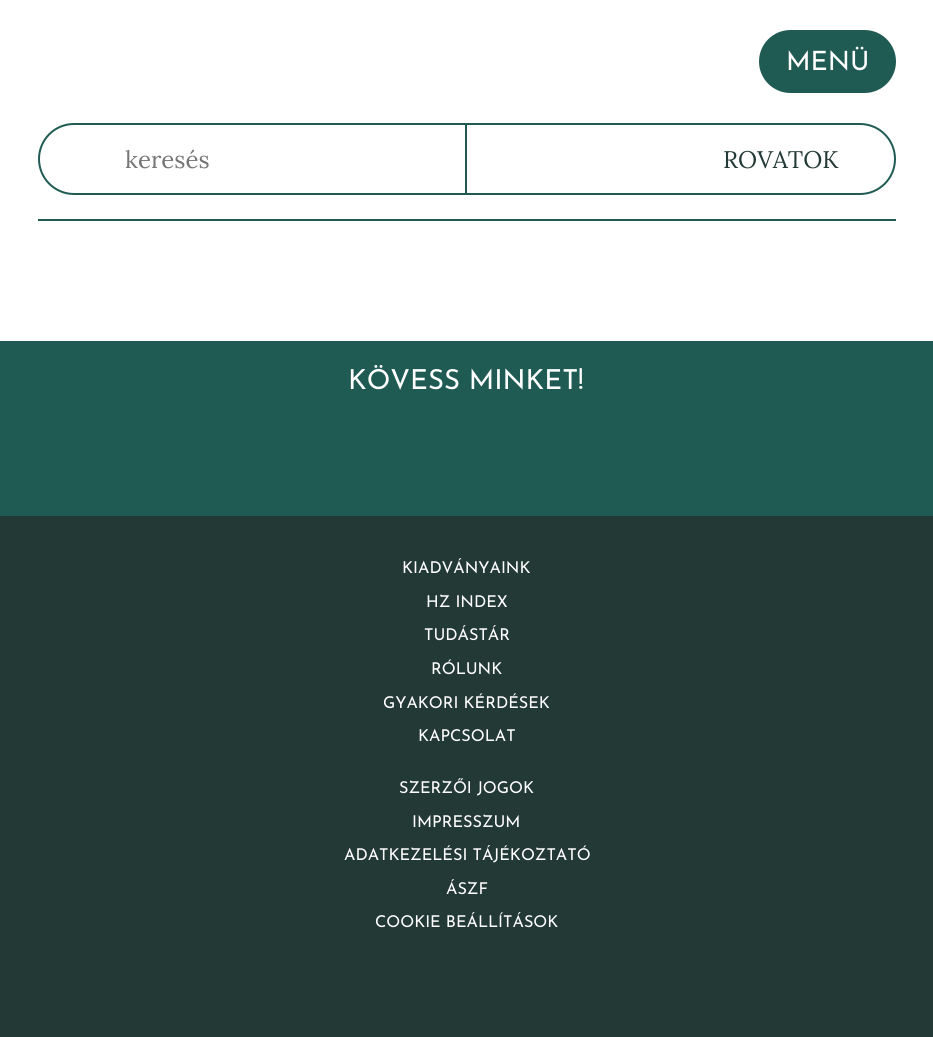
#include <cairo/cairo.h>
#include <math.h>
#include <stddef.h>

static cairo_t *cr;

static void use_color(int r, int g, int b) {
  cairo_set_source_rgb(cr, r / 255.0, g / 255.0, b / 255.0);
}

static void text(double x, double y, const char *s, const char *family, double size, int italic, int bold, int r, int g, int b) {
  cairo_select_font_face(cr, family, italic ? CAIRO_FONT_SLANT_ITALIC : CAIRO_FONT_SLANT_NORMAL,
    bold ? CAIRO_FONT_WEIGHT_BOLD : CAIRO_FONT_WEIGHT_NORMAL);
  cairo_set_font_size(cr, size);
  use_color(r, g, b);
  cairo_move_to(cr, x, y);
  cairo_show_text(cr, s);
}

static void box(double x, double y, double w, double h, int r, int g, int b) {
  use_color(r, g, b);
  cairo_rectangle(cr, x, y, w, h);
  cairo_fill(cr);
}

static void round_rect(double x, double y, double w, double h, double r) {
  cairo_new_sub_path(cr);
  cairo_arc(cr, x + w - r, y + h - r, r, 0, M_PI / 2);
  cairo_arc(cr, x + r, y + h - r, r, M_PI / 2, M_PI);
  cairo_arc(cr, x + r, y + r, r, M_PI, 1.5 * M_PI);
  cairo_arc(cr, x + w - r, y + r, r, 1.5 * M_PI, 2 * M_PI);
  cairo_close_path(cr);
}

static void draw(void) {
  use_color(255, 255, 255);
  cairo_paint(cr);
  use_color(31, 91, 83);
  round_rect(759, 30, 137, 63, 31.5);
  cairo_fill(cr);
  round_rect(39, 124, 856, 70, 35);
  cairo_stroke(cr);
  box(465, 125, 2, 69, 31, 91, 83);
  box(38, 219, 858, 2, 31, 91, 83);
  box(0, 341, 933, 175, 31, 91, 83);
  box(0, 516, 933, 521, 35, 57, 54);
  text(786, 70, "MENÜ", "Josefin Sans", 26.5, 0, 0, 255, 255, 255);
  text(125, 168, "keresés", "Lora", 24, 0, 0, 117, 117, 117);
  text(723, 168, "ROVATOK", "Lora", 24, 0, 0, 35, 57, 53);
  text(348, 389, "KÖVESS MINKET!", "Josefin Sans", 27.5, 0, 0, 255, 255, 255);
  text(402, 573, "KIADVÁNYAINK", "Josefin Sans", 16.25, 0, 0, 255, 255, 255);
  text(426, 607, "HZ INDEX", "Josefin Sans", 16.25, 0, 0, 255, 255, 255);
  text(424, 640, "TUDÁSTÁR", "Josefin Sans", 16.25, 0, 0, 255, 255, 255);
  text(431, 674, "RÓLUNK", "Josefin Sans", 16.25, 0, 0, 255, 255, 255);
  text(383, 708, "GYAKORI KÉRDÉSEK", "Josefin Sans", 16.25, 0, 0, 255, 255, 255);
  text(418, 741, "KAPCSOLAT", "Josefin Sans", 16.25, 0, 0, 255, 255, 255);
  text(399, 793, "SZERZŐI JOGOK", "Josefin Sans", 16.25, 0, 0, 255, 255, 255);
  text(412, 827, "IMPRESSZUM", "Josefin Sans", 16.25, 0, 0, 255, 255, 255);
  text(344, 860, "ADATKEZELÉSI TÁJÉKOZTATÓ", "Josefin Sans", 16.25, 0, 0, 255, 255, 255);
  text(446, 894, "ÁSZF", "Josefin Sans", 16.25, 0, 0, 255, 255, 255);
  text(375, 927, "COOKIE BEÁLLÍTÁSOK", "Josefin Sans", 16.25, 0, 0, 255, 255, 255);
}

int main(void) {
  cairo_surface_t *surface = cairo_image_surface_create(CAIRO_FORMAT_RGB24, 933, 1037);
  cr = cairo_create(surface);
  cairo_font_options_t *options = cairo_font_options_create();
  cairo_font_options_set_hint_metrics(options, CAIRO_HINT_METRICS_OFF);
  cairo_font_options_set_hint_style(options, CAIRO_HINT_STYLE_NONE);
  cairo_set_font_options(cr, options);
  cairo_set_miter_limit(cr, 4);
  draw();
  cairo_surface_write_to_png(surface, "out.png");
  cairo_font_options_destroy(options);
  cairo_destroy(cr);
  cairo_surface_destroy(surface);
  return 0;
}
